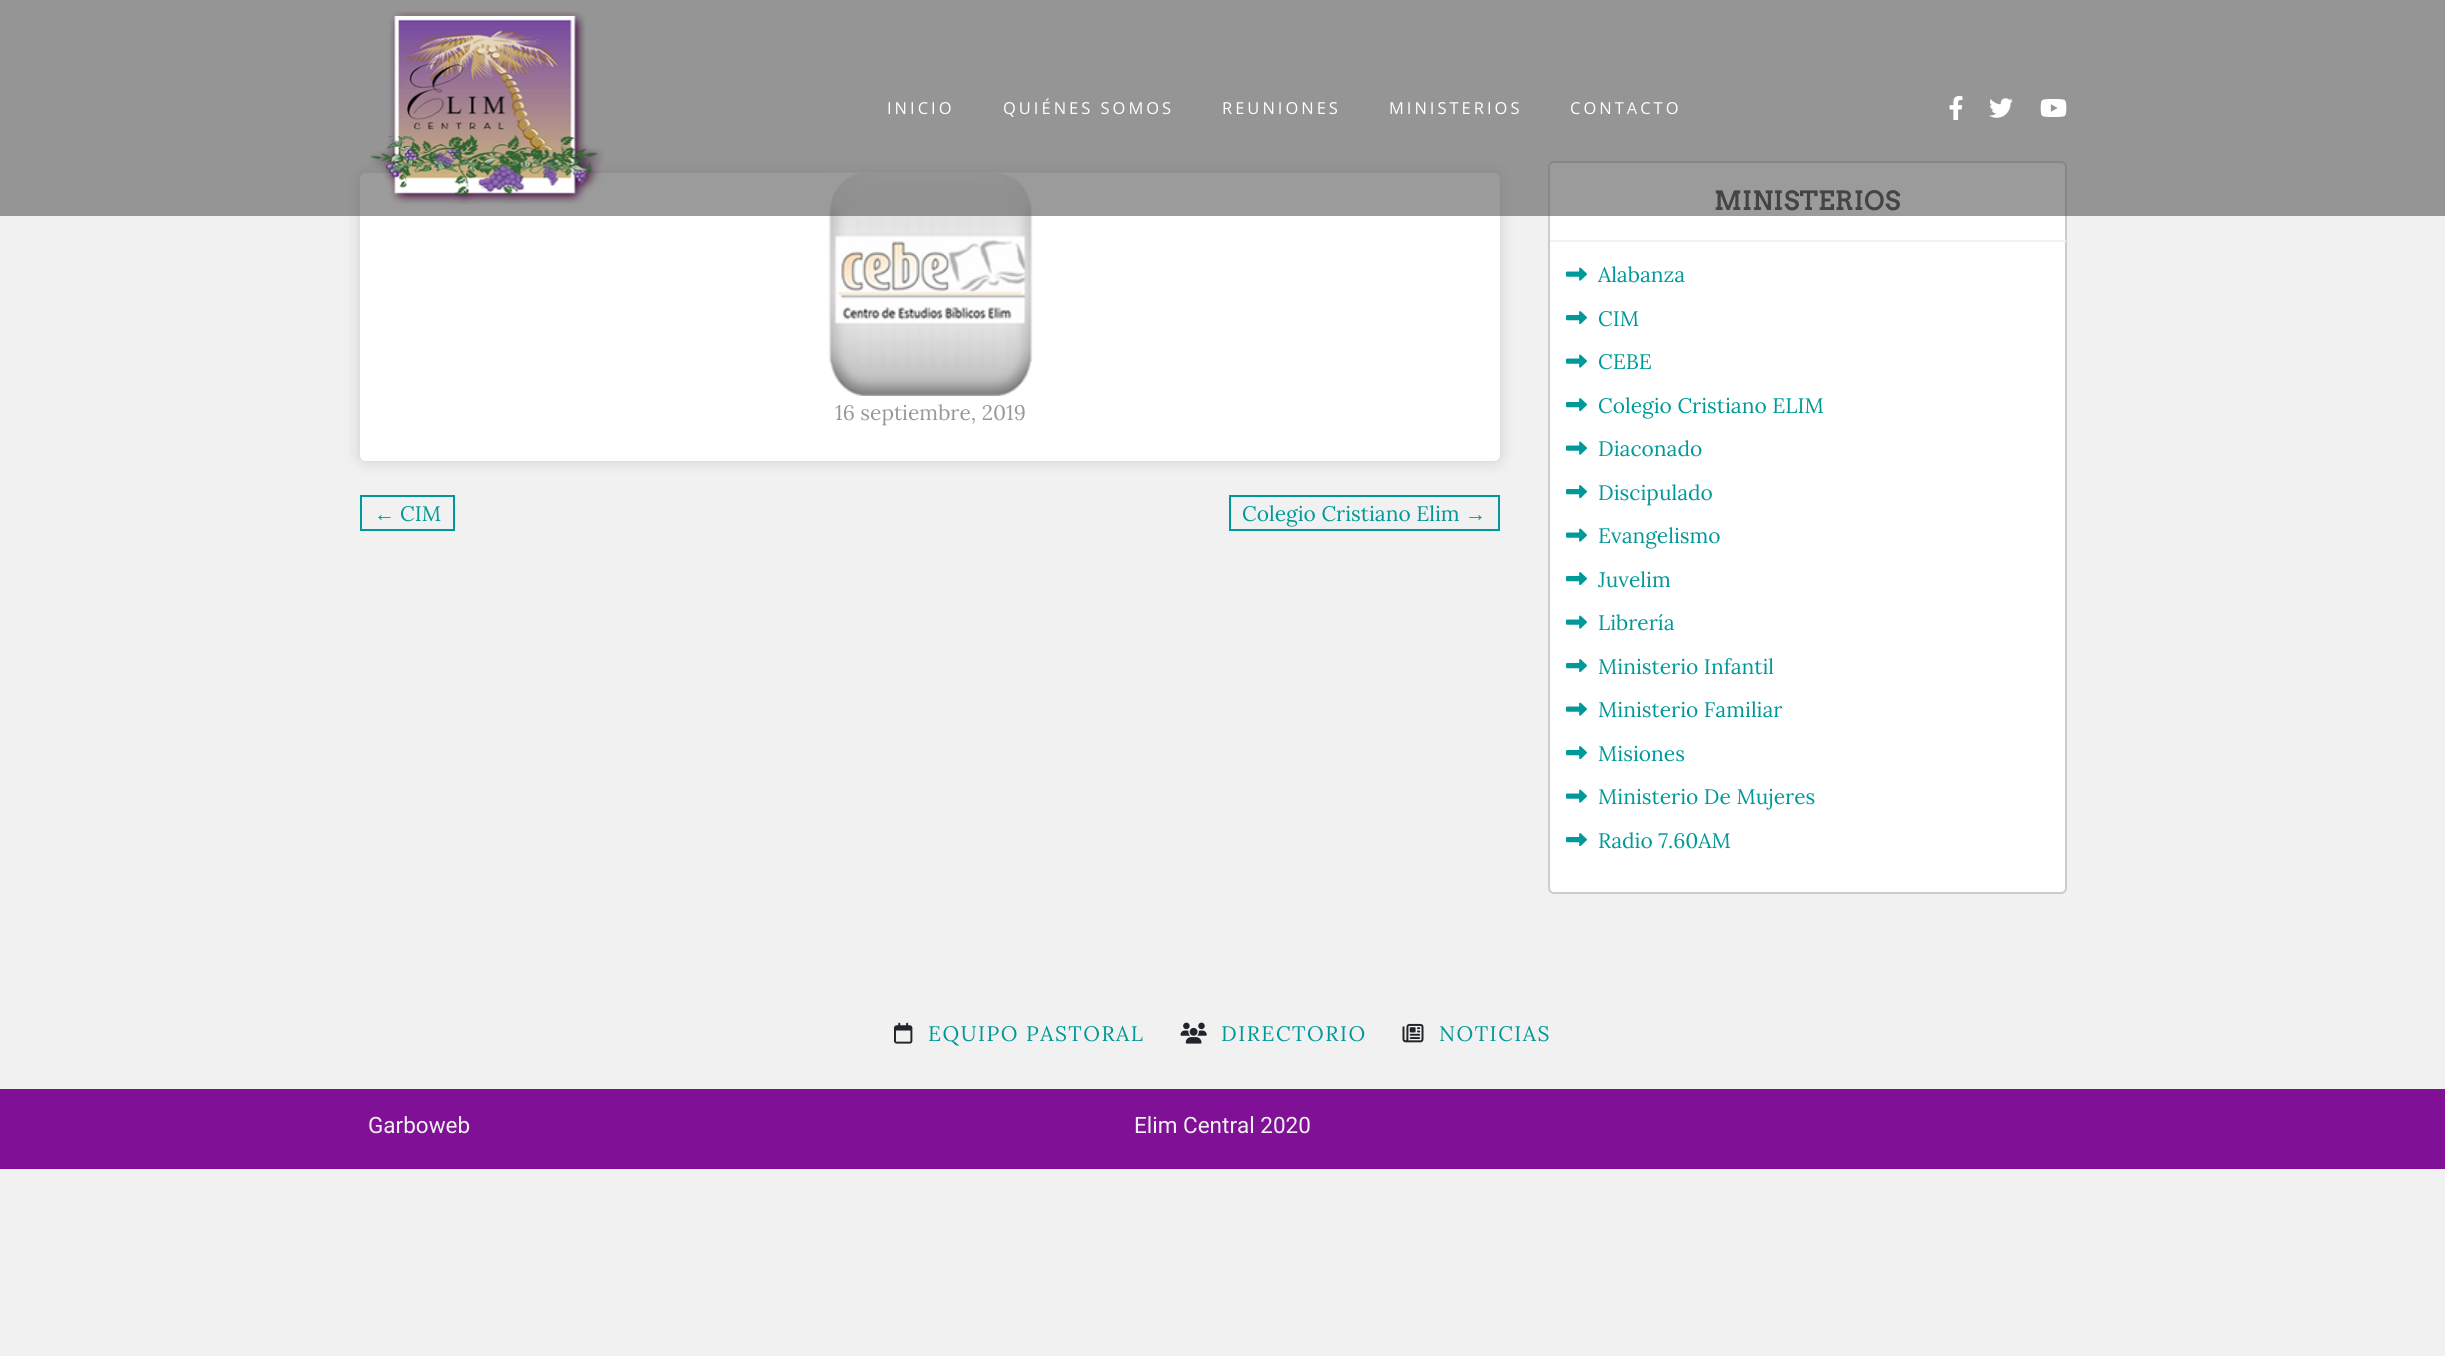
#include <cairo/cairo.h>
#include <math.h>
#include <stddef.h>

static cairo_t *cr;

static void use_color(int r, int g, int b) {
  cairo_set_source_rgb(cr, r / 255.0, g / 255.0, b / 255.0);
}

static void text(double x, double y, const char *s, const char *family, double size, int italic, int bold, int r, int g, int b) {
  cairo_select_font_face(cr, family, italic ? CAIRO_FONT_SLANT_ITALIC : CAIRO_FONT_SLANT_NORMAL,
    bold ? CAIRO_FONT_WEIGHT_BOLD : CAIRO_FONT_WEIGHT_NORMAL);
  cairo_set_font_size(cr, size);
  use_color(r, g, b);
  cairo_move_to(cr, x, y);
  cairo_show_text(cr, s);
}

static void spaced_text(double x, double y, const char *s, double letter, double word) {
  cairo_move_to(cr, x, y);
  while (*s) {
    char ch[5] = {0};
    int n = 0;
    do ch[n++] = *s++; while ((*s & 0xC0) == 0x80);
    cairo_show_text(cr, ch);
    cairo_rel_move_to(cr, letter + word * (*ch == ' '), 0);
  }
}

static void box(double x, double y, double w, double h, int r, int g, int b) {
  use_color(r, g, b);
  cairo_rectangle(cr, x, y, w, h);
  cairo_fill(cr);
}

static void round_rect(double x, double y, double w, double h, double r) {
  cairo_new_sub_path(cr);
  cairo_arc(cr, x + w - r, y + h - r, r, 0, M_PI / 2);
  cairo_arc(cr, x + r, y + h - r, r, M_PI / 2, M_PI);
  cairo_arc(cr, x + r, y + r, r, M_PI, 1.5 * M_PI);
  cairo_arc(cr, x + w - r, y + r, r, 1.5 * M_PI, 2 * M_PI);
  cairo_close_path(cr);
}

static void shadow(double x, double y, double w, double h, double r, double blur, double alpha) {
  cairo_push_group_with_content(cr, CAIRO_CONTENT_ALPHA);
  cairo_set_operator(cr, CAIRO_OPERATOR_SOURCE);
  for (int i = 15; i >= -15 && fmin(w, h) + blur * i / 3 > 0; i -= 2) {
    double e = blur * i / 6;
    cairo_set_source_rgba(cr, 0, 0, 0, alpha * erfc((i - 1) / 8.5) / 2);
    round_rect(x - e, y - e, w + 2 * e, h + 2 * e, fmax(0, fmin(r + e + blur * .6, fmin(w, h) / 2 + e)));
    cairo_fill(cr);
  }
  cairo_pattern_t *soft = cairo_pop_group(cr);
  cairo_mask(cr, soft);
  cairo_pattern_destroy(soft);
}

static void picture(const char *path, double x, double y, double w, double h) {
  cairo_surface_t *image = cairo_image_surface_create_from_png(path);
  cairo_save(cr);
  cairo_set_source_surface(cr, image, x, y);
  cairo_rectangle(cr, x, y, w, h);
  cairo_fill(cr);
  cairo_restore(cr);
  cairo_surface_destroy(image);
}

static void draw(void) {
  use_color(241, 241, 241);
  cairo_paint(cr);
  use_color(204, 204, 204);
  shadow(360, 173, 1140, 288, 6, 7.5, 1);
  use_color(255, 255, 255);
  round_rect(360, 173, 1140, 288, 6);
  cairo_fill(cr);
  picture("img_05.png", 819, 172, 224, 224);
  cairo_rectangle(cr, 361, 496, 93, 34);
  use_color(0, 153, 153);
  cairo_stroke(cr);
  cairo_rectangle(cr, 1230, 496, 269, 34);
  cairo_stroke(cr);
  use_color(255, 255, 255);
  round_rect(1549, 162, 517, 731, 5);
  cairo_fill_preserve(cr);
  use_color(204, 204, 204);
  cairo_stroke(cr);
  box(1550, 240, 516, 2, 241, 241, 241);
  picture("img_06.png", 1566, 267, 21, 14);
  picture("img_07.png", 1566, 311, 21, 14);
  picture("img_06.png", 1566, 354, 21, 14);
  picture("img_07.png", 1566, 398, 21, 14);
  picture("img_06.png", 1566, 441, 21, 14);
  picture("img_07.png", 1566, 485, 21, 14);
  picture("img_06.png", 1566, 528, 21, 14);
  picture("img_07.png", 1566, 572, 21, 14);
  picture("img_06.png", 1566, 615, 21, 14);
  picture("img_07.png", 1566, 659, 21, 14);
  picture("img_06.png", 1566, 702, 21, 14);
  picture("img_07.png", 1566, 746, 21, 14);
  picture("img_06.png", 1566, 789, 21, 14);
  picture("img_07.png", 1566, 833, 21, 14);
  picture("img_08.png", 894, 1022, 19, 22);
  picture("img_09.png", 1180, 1022, 27, 22);
  picture("img_10.png", 1402, 1023, 22, 20);
  box(0, 1089, 2445, 80, 128, 17, 151);
  text(835, 420, "16 septiembre, 2019", "Lora", 21, 0, 0, 153, 153, 153);
  text(374, 521, "←", "Liberation Serif", 21, 0, 0, 0, 153, 153);
  text(400, 521, "CIM", "Lora", 21, 0, 0, 0, 153, 153);
  text(1242, 521, "Colegio Cristiano Elim", "Lora", 21, 0, 0, 0, 153, 153);
  text(1465, 521, "→", "Liberation Serif", 21, 0, 0, 0, 153, 153);
  cairo_select_font_face(cr, "Arvo", CAIRO_FONT_SLANT_NORMAL, CAIRO_FONT_WEIGHT_BOLD);
  cairo_set_font_size(cr, 25.5);
  use_color(33, 37, 41);
  spaced_text(1714, 210, "MINISTERIOS", 0.75, 0);
  cairo_set_source_rgba(cr, 0.349, 0.349, 0.349, 0.6);
  cairo_rectangle(cr, 0, 0, 2445, 216);
  cairo_fill(cr);
  picture("img_04.png", 2040, 99, 27, 18);
  picture("img_03.png", 1989, 98, 24, 20);
  picture("img_02.png", 1949, 96, 14, 24);
  cairo_select_font_face(cr, "Open Sans", CAIRO_FONT_SLANT_NORMAL, CAIRO_FONT_WEIGHT_NORMAL);
  cairo_set_font_size(cr, 16.5);
  use_color(255, 255, 255);
  spaced_text(1570, 114, "CONTACTO", 3, 0);
  spaced_text(1389, 114, "MINISTERIOS", 3, 0);
  spaced_text(1222, 114, "REUNIONES", 3, 0);
  spaced_text(1003, 114, "QUIÉNES SOMOS", 3, 0);
  spaced_text(887, 114, "INICIO", 3, 0);
  picture("img_01.png", 369, 11, 235, 194);
  text(1598, 282, "Alabanza", "Lora", 21, 0, 0, 0, 153, 153);
  text(1598, 326, "CIM", "Lora", 21, 0, 0, 0, 153, 153);
  text(1598, 369, "CEBE", "Lora", 21, 0, 0, 0, 153, 153);
  text(1598, 413, "Colegio Cristiano ELIM", "Lora", 21, 0, 0, 0, 153, 153);
  text(1598, 456, "Diaconado", "Lora", 21, 0, 0, 0, 153, 153);
  text(1598, 500, "Discipulado", "Lora", 21, 0, 0, 0, 153, 153);
  text(1598, 543, "Evangelismo", "Lora", 21, 0, 0, 0, 153, 153);
  text(1598, 587, "Juvelim", "Lora", 21, 0, 0, 0, 153, 153);
  text(1598, 630, "Librería", "Lora", 21, 0, 0, 0, 153, 153);
  text(1598, 674, "Ministerio Infantil", "Lora", 21, 0, 0, 0, 153, 153);
  text(1598, 717, "Ministerio Familiar", "Lora", 21, 0, 0, 0, 153, 153);
  text(1598, 761, "Misiones", "Lora", 21, 0, 0, 0, 153, 153);
  text(1598, 804, "Ministerio De Mujeres", "Lora", 21, 0, 0, 0, 153, 153);
  text(1598, 848, "Radio 7.60AM", "Lora", 21, 0, 0, 0, 153, 153);
  spaced_text(928, 1041, "EQUIPO PASTORAL", 1.5, 0);
  spaced_text(1221, 1041, "DIRECTORIO", 1.5, 0);
  spaced_text(1439, 1041, "NOTICIAS", 1.5, 0);
  text(368, 1133, "Garboweb", "Roboto", 22.5, 0, 0, 241, 241, 241);
  text(1134, 1133, "Elim Central 2020", "Roboto", 22.5, 0, 0, 241, 241, 241);
}

int main(void) {
  cairo_surface_t *surface = cairo_image_surface_create(CAIRO_FORMAT_RGB24, 2445, 1356);
  cr = cairo_create(surface);
  cairo_font_options_t *options = cairo_font_options_create();
  cairo_font_options_set_hint_metrics(options, CAIRO_HINT_METRICS_OFF);
  cairo_font_options_set_hint_style(options, CAIRO_HINT_STYLE_NONE);
  cairo_set_font_options(cr, options);
  cairo_set_miter_limit(cr, 4);
  draw();
  cairo_surface_write_to_png(surface, "out.png");
  cairo_font_options_destroy(options);
  cairo_destroy(cr);
  cairo_surface_destroy(surface);
  return 0;
}
